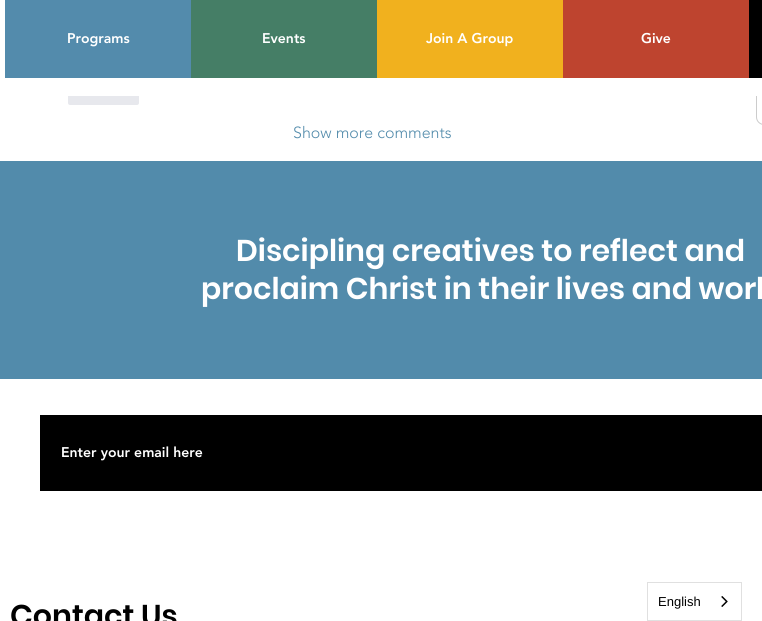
#include <cairo/cairo.h>
#include <math.h>
#include <stddef.h>

static cairo_t *cr;

static void use_color(int r, int g, int b) {
  cairo_set_source_rgb(cr, r / 255.0, g / 255.0, b / 255.0);
}

static void text(double x, double y, const char *s, const char *family, double size, int italic, int bold, int r, int g, int b) {
  cairo_select_font_face(cr, family, italic ? CAIRO_FONT_SLANT_ITALIC : CAIRO_FONT_SLANT_NORMAL,
    bold ? CAIRO_FONT_WEIGHT_BOLD : CAIRO_FONT_WEIGHT_NORMAL);
  cairo_set_font_size(cr, size);
  use_color(r, g, b);
  cairo_move_to(cr, x, y);
  cairo_show_text(cr, s);
}

static void box(double x, double y, double w, double h, int r, int g, int b) {
  use_color(r, g, b);
  cairo_rectangle(cr, x, y, w, h);
  cairo_fill(cr);
}

static void round_rect(double x, double y, double w, double h, double r) {
  cairo_new_sub_path(cr);
  cairo_arc(cr, x + w - r, y + h - r, r, 0, M_PI / 2);
  cairo_arc(cr, x + r, y + h - r, r, M_PI / 2, M_PI);
  cairo_arc(cr, x + r, y + r, r, M_PI, 1.5 * M_PI);
  cairo_arc(cr, x + w - r, y + r, r, 1.5 * M_PI, 2 * M_PI);
  cairo_close_path(cr);
}

static void picture(const char *path, double x, double y, double w, double h) {
  cairo_surface_t *image = cairo_image_surface_create_from_png(path);
  cairo_save(cr);
  cairo_set_source_surface(cr, image, x, y);
  cairo_rectangle(cr, x, y, w, h);
  cairo_fill(cr);
  cairo_restore(cr);
  cairo_surface_destroy(image);
}

static void draw(void) {
  use_color(255, 255, 255);
  cairo_paint(cr);
  round_rect(756.5, -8.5, 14, 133, 7.5);
  use_color(204, 204, 204);
  cairo_set_line_width(cr, 1);
  cairo_stroke(cr);
  use_color(231, 232, 237);
  round_rect(68, 84, 71, 21, 2);
  cairo_fill(cr);
  box(68, 0, 689, 96, 255, 255, 255);
  box(5, 0, 186, 78, 83, 139, 172);
  box(191, 0, 186, 78, 69, 126, 102);
  box(377, 0, 186, 78, 241, 177, 30);
  box(563, 0, 186, 78, 190, 68, 47);
  box(749, 0, 13, 78, 0, 0, 0);
  box(0, 161, 762, 218, 82, 139, 171);
  box(40, 415, 722, 76, 0, 0, 0);
  cairo_rectangle(cr, 647.5, 582.5, 94, 38);
  use_color(224, 224, 224);
  cairo_stroke(cr);
  picture("img_01.png", 721, 596, 7, 11);
  text(67, 43, "Programs", "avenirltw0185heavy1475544 Black", 14, 0, 0, 255, 255, 255);
  text(262, 43, "Events", "avenirltw0185heavy1475544 Black", 14, 0, 0, 255, 255, 255);
  text(426, 43, "Join A Group", "avenirltw0185heavy1475544 Black", 14, 0, 0, 255, 255, 255);
  text(641, 43, "Give", "avenirltw0185heavy1475544 Black", 14, 0, 0, 255, 255, 255);
  text(293, 138, "Show more comments", "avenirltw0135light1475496 Light", 16, 0, 0, 82, 139, 171);
  text(236, 261, "Discipling creatives to reflect and", "Poppins SemiBold", 30, 0, 0, 255, 255, 255);
  text(201, 299, "proclaim Christ in their lives and work", "Poppins SemiBold", 30, 0, 0, 255, 255, 255);
  text(61, 457, "Enter your email here", "avenirltw0185heavy1475544 Black", 14, 0, 0, 255, 255, 255);
  text(10, 626, "Contact Us", "Poppins SemiBold", 30, 0, 0, 0, 0, 0);
  text(658, 606, "English", "Liberation Sans", 13, 0, 0, 0, 0, 0);
}

int main(void) {
  cairo_surface_t *surface = cairo_image_surface_create(CAIRO_FORMAT_RGB24, 762, 621);
  cr = cairo_create(surface);
  cairo_font_options_t *options = cairo_font_options_create();
  cairo_font_options_set_hint_metrics(options, CAIRO_HINT_METRICS_OFF);
  cairo_font_options_set_hint_style(options, CAIRO_HINT_STYLE_NONE);
  cairo_set_font_options(cr, options);
  cairo_set_miter_limit(cr, 4);
  draw();
  cairo_surface_write_to_png(surface, "out.png");
  cairo_font_options_destroy(options);
  cairo_destroy(cr);
  cairo_surface_destroy(surface);
  return 0;
}
